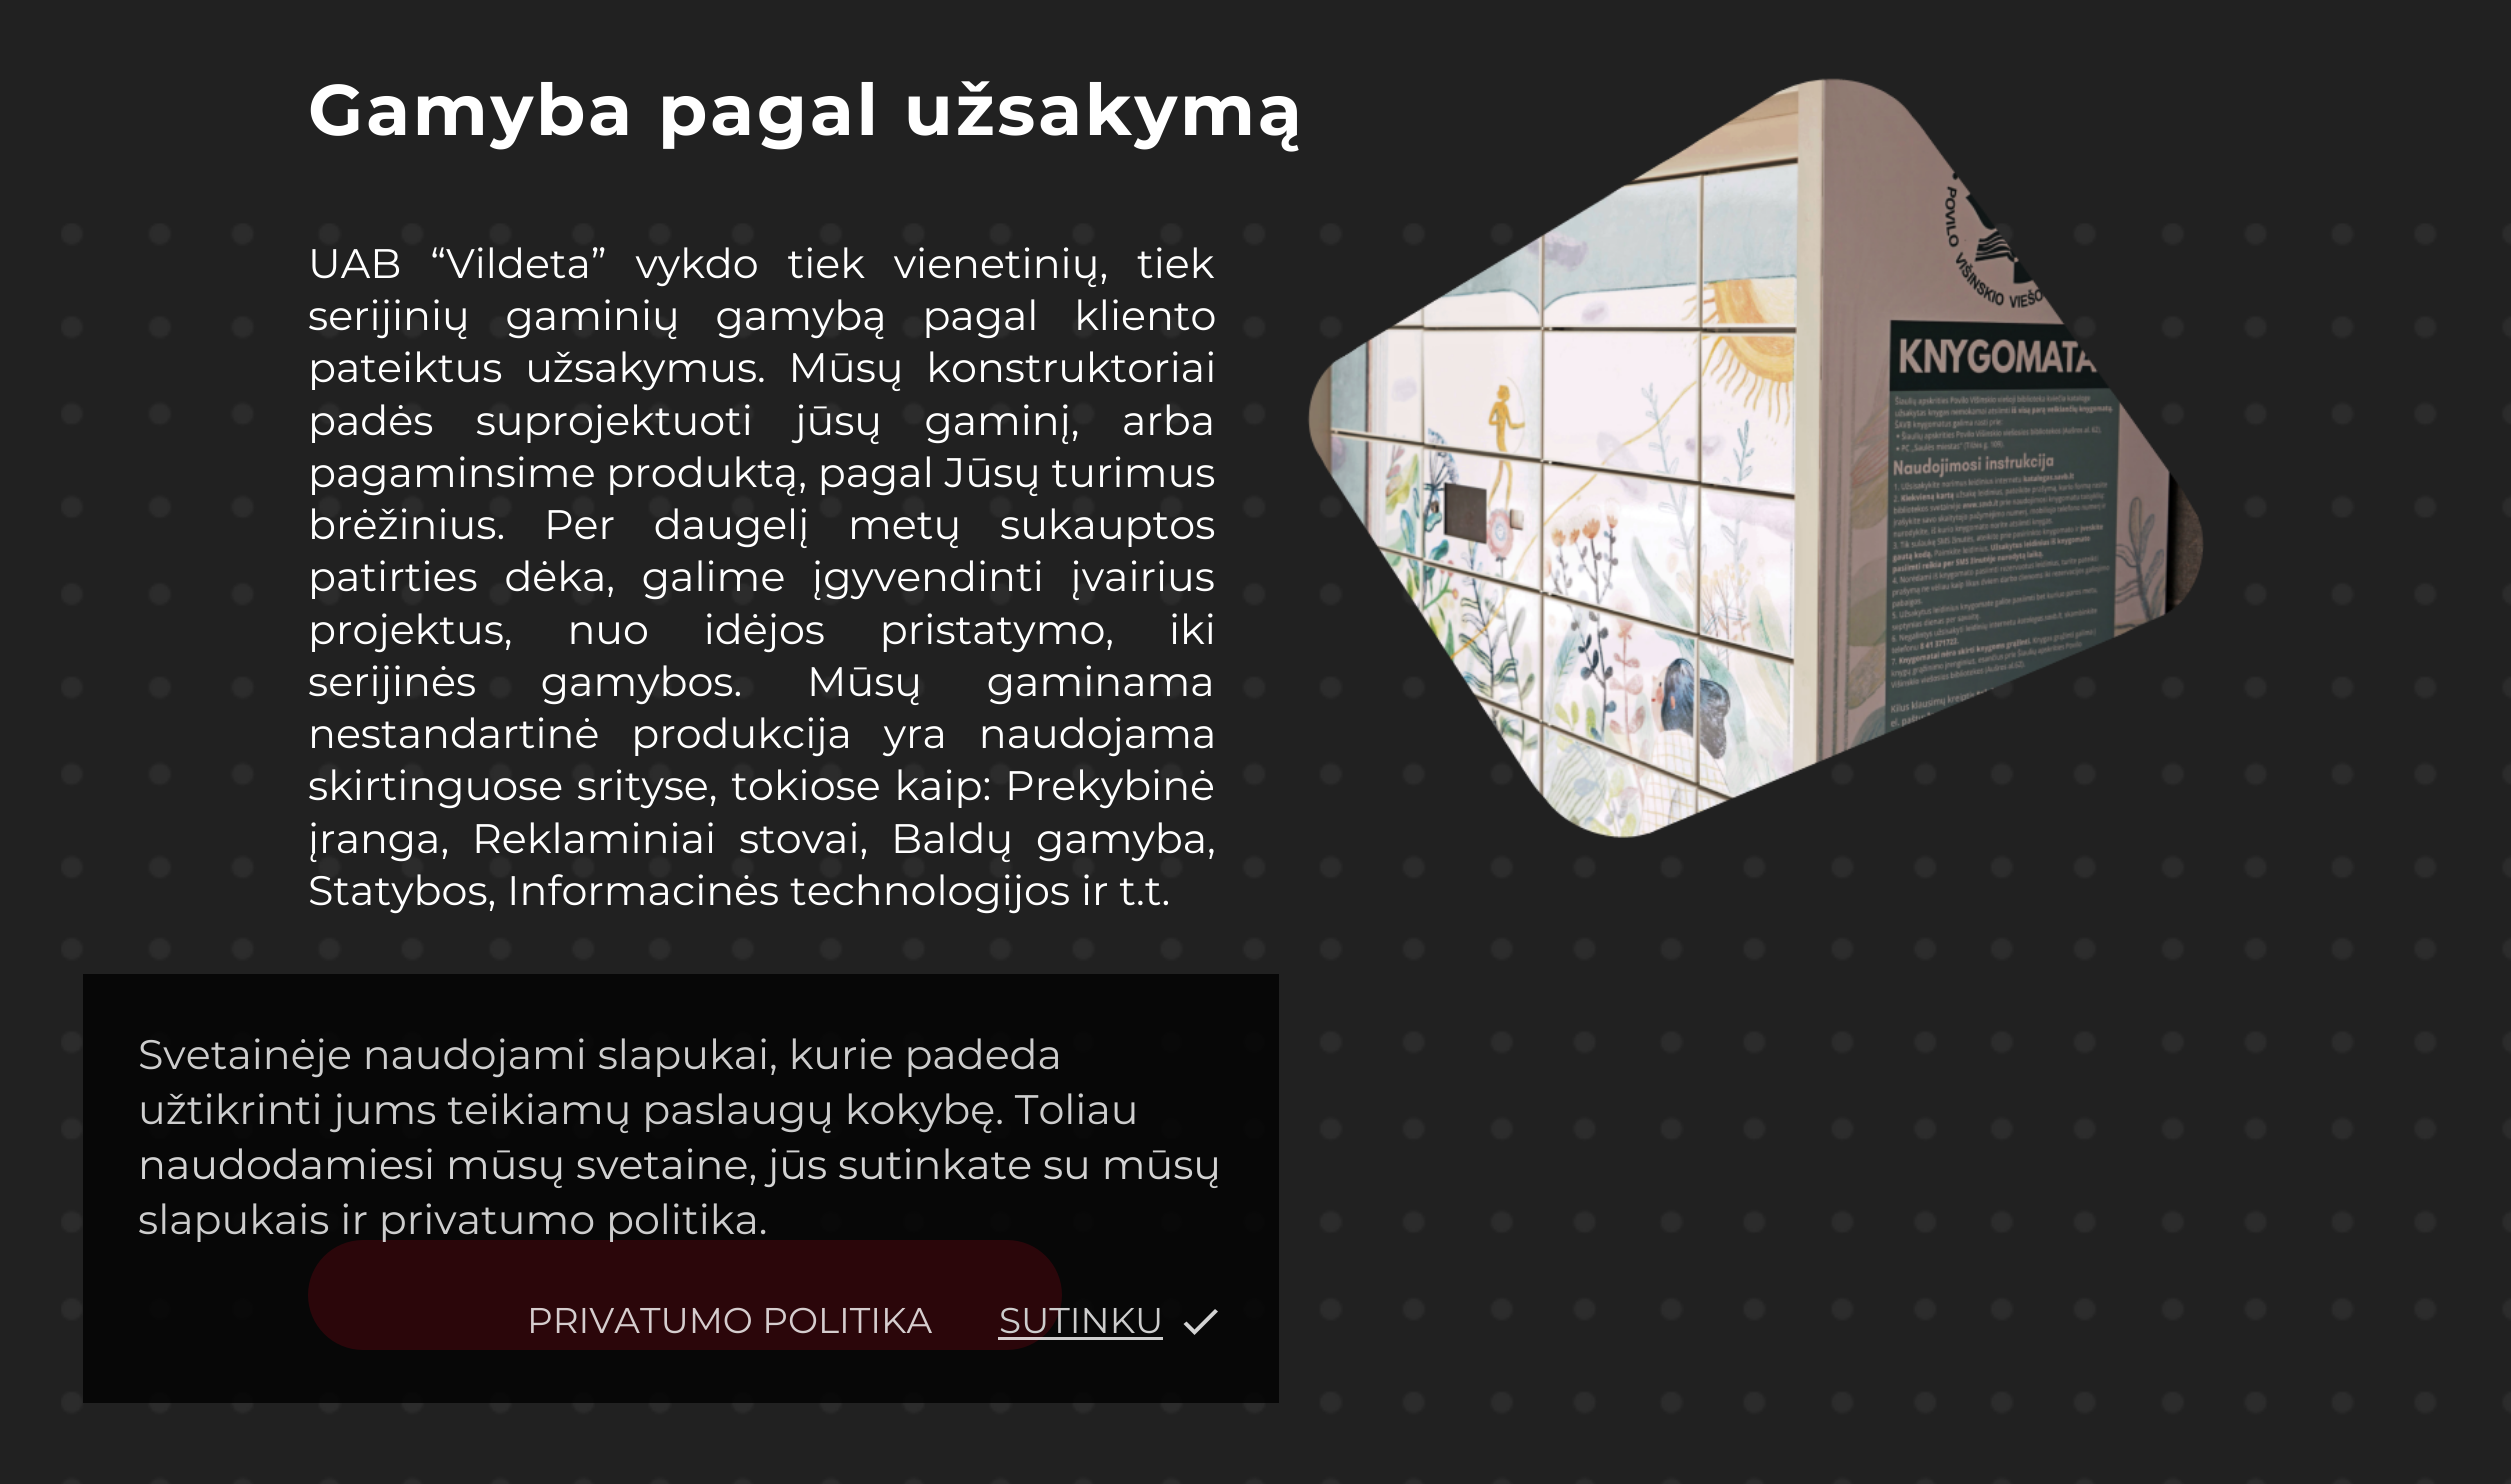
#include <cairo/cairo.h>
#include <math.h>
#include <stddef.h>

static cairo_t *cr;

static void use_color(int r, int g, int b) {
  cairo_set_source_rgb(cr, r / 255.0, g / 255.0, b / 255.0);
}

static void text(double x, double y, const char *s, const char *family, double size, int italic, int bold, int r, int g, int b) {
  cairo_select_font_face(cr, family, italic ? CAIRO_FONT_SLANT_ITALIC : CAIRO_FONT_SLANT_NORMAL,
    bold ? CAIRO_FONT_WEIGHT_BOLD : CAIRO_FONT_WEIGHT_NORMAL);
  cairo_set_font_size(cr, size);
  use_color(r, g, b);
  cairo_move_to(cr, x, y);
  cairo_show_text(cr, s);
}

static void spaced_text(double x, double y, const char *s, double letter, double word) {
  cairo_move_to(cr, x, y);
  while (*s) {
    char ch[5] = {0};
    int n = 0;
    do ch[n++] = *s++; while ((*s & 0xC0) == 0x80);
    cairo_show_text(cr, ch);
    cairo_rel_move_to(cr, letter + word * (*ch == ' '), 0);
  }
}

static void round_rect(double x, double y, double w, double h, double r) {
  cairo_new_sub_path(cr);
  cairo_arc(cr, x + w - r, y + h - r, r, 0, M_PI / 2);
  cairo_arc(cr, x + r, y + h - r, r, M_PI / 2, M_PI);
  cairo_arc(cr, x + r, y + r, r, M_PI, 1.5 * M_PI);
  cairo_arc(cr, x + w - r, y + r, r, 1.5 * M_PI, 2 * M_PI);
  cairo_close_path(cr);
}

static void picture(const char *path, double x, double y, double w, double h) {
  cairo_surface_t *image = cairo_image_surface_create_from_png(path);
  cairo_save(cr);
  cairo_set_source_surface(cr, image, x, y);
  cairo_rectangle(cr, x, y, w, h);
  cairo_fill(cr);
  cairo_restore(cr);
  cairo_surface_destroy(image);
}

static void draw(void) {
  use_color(33, 33, 33);
  cairo_paint(cr);
  picture("img_01.png", 61, 223, 2450, 1261);
  picture("img_02.png", 1307, 78, 897, 760);
  use_color(213, 29, 49);
  round_rect(311, 1243, 748, 104, 52);
  cairo_fill_preserve(cr);
  cairo_set_line_width(cr, 6);
  cairo_stroke(cr);
  cairo_set_source_rgba(cr, 0, 0, 0, 0.8);
  cairo_rectangle(cr, 83, 974, 1196, 429);
  cairo_fill(cr);
  cairo_set_source_rgba(cr, 1, 1, 1, 0.8);
  cairo_rectangle(cr, 998, 1337, 165, 3);
  cairo_fill(cr);
  use_color(211, 211, 211);
  cairo_new_path(cr);
  cairo_move_to(cr, 1194.5, 1329.5);
  cairo_line_to(cr, 1215, 1309);
  cairo_line_to(cr, 1218, 1311.5);
  cairo_line_to(cr, 1194.5, 1335);
  cairo_line_to(cr, 1183.5, 1324);
  cairo_line_to(cr, 1186.5, 1321.5);
  cairo_close_path(cr);
  cairo_fill(cr);
  cairo_select_font_face(cr, "Montserrat", CAIRO_FONT_SLANT_NORMAL, CAIRO_FONT_WEIGHT_BOLD);
  cairo_set_font_size(cr, 71.5);
  use_color(255, 255, 255);
  spaced_text(308, 135, "Gamyba pagal užsakymą", 2.75, 0);
  cairo_select_font_face(cr, "Montserrat", CAIRO_FONT_SLANT_NORMAL, CAIRO_FONT_WEIGHT_NORMAL);
  cairo_set_font_size(cr, 41.25);
  spaced_text(308, 278, "UAB “Vildeta” vykdo tiek vienetinių, tiek", 0, 18);
  spaced_text(308, 330, "serijinių gaminių gamybą pagal kliento", 0, 25);
  spaced_text(308, 382, "pateiktus užsakymus. Mūsų konstruktoriai", 0, 12);
  spaced_text(308, 435, "padės suprojektuoti jūsų gaminį, arba", 0, 31.5);
  text(308, 487, "pagaminsime produktą, pagal Jūsų turimus", "Montserrat", 41.25, 0, 0, 255, 255, 255);
  spaced_text(308, 539, "brėžinius. Per daugelį metų sukauptos", 0, 28);
  spaced_text(308, 591, "patirties dėka, galime įgyvendinti įvairius", 0, 16);
  spaced_text(308, 644, "projektus, nuo idėjos pristatymo, iki", 0, 44);
  spaced_text(308, 696, "serijinės gamybos. Mūsų gaminama", 0, 54);
  spaced_text(308, 748, "nestandartinė produkcija yra naudojama", 0, 21);
  spaced_text(308, 800, "skirtinguose srityse, tokiose kaip: Prekybinė", 0, 3);
  spaced_text(308, 853, "įranga, Reklaminiai stovai, Baldų gamyba,", 0, 12);
  text(308, 905, "Statybos, Informacinės technologijos ir t.t.", "Montserrat", 41.25, 0, 0, 255, 255, 255);
  text(138, 1069, "Svetainėje naudojami slapukai, kurie padeda", "Montserrat", 41.25, 0, 0, 205, 205, 205);
  text(138, 1124, "užtikrinti jums teikiamų paslaugų kokybę. Toliau", "Montserrat", 41.25, 0, 0, 205, 205, 205);
  text(138, 1179, "naudodamiesi mūsų svetaine, jūs sutinkate su mūsų", "Montserrat", 41.25, 0, 0, 211, 211, 211);
  text(138, 1234, "slapukais ir privatumo politika.", "Montserrat", 41.25, 0, 0, 205, 205, 205);
  text(527, 1333, "PRIVATUMO POLITIKA", "Montserrat", 35.75, 0, 0, 213, 205, 206);
  text(999, 1333, "SUTINKU", "Montserrat", 35.75, 0, 0, 205, 205, 205);
}

int main(void) {
  cairo_surface_t *surface = cairo_image_surface_create(CAIRO_FORMAT_RGB24, 2511, 1484);
  cr = cairo_create(surface);
  cairo_font_options_t *options = cairo_font_options_create();
  cairo_font_options_set_hint_metrics(options, CAIRO_HINT_METRICS_OFF);
  cairo_font_options_set_hint_style(options, CAIRO_HINT_STYLE_NONE);
  cairo_set_font_options(cr, options);
  cairo_set_miter_limit(cr, 4);
  draw();
  cairo_surface_write_to_png(surface, "out.png");
  cairo_font_options_destroy(options);
  cairo_destroy(cr);
  cairo_surface_destroy(surface);
  return 0;
}
